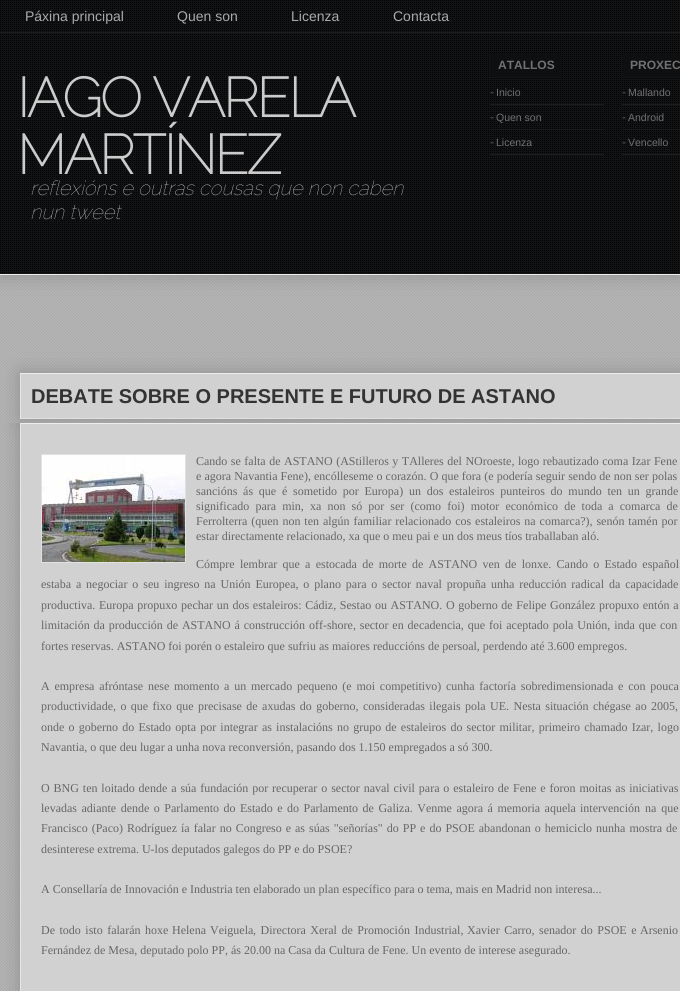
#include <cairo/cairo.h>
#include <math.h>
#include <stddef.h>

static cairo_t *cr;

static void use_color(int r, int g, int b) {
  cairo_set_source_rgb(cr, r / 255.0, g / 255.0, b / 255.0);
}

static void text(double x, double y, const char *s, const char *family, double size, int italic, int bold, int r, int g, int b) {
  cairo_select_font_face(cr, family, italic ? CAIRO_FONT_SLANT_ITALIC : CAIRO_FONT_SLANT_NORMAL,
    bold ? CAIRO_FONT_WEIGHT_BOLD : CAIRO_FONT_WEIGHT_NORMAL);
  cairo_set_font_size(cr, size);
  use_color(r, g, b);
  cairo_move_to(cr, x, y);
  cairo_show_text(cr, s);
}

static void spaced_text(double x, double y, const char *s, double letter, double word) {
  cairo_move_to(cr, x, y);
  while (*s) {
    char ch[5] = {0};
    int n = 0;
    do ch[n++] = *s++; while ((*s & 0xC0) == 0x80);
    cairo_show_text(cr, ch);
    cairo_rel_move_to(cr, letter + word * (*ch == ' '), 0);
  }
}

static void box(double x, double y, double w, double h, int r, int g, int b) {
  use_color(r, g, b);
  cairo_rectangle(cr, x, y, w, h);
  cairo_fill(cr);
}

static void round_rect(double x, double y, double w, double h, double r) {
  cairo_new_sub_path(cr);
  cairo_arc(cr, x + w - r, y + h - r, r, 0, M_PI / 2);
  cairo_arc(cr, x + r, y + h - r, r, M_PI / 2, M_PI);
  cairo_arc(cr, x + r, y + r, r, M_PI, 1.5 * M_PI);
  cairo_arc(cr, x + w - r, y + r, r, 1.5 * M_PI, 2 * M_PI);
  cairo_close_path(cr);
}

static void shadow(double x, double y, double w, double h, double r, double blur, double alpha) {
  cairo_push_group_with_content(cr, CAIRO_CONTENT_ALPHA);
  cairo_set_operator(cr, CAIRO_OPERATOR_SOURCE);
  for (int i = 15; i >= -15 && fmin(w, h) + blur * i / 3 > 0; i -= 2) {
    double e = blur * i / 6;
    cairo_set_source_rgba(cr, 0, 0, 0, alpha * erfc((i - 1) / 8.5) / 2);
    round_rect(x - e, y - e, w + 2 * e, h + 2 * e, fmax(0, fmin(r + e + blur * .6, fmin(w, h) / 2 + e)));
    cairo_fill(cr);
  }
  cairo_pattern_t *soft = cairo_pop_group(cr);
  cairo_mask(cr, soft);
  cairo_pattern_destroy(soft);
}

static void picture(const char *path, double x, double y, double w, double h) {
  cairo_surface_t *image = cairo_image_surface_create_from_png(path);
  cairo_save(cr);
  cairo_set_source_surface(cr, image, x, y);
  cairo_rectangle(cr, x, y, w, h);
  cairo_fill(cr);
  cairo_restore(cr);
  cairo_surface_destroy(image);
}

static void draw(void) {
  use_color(180, 180, 180);
  cairo_paint(cr);
  picture("img_01.png", 0, 275, 680, 716);
  use_color(0, 0, 0);
  shadow(0, 0, 680, 275, 0, 10, 0.2);
  box(0, 33, 680, 241, 18, 19, 20);
  picture("img_02.png", 0, 34, 679, 239);
  box(0, 274, 680, 1, 238, 238, 238);
  box(0, 0, 680, 32, 18, 19, 20);
  picture("img_03.png", 0, 0, 679, 31);
  box(0, 32, 680, 1, 26, 28, 30);
  box(490, 53, 72, 24, 14, 15, 16);
  box(490, 104, 114, 1, 27, 28, 29);
  box(490, 129, 114, 1, 27, 28, 29);
  box(490, 154, 114, 1, 27, 28, 29);
  box(622, 53, 58, 24, 14, 15, 16);
  box(622, 104, 58, 1, 27, 28, 29);
  box(622, 129, 58, 1, 27, 28, 29);
  box(622, 154, 58, 1, 27, 28, 29);
  use_color(0, 0, 0);
  shadow(20, 373, 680, 46, 0, 10, 0.2);
  box(21, 374, 659, 44, 209, 209, 209);
  box(20, 373, 660, 1, 238, 238, 238);
  box(20, 418, 660, 1, 225, 225, 225);
  box(20, 373, 1, 46, 230, 230, 230);
  cairo_save(cr);
  cairo_rectangle(cr, 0, 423, 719, 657);
  cairo_clip(cr);
  use_color(0, 0, 0);
  shadow(20, 423, 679, 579, 0, 10, 0.2);
  cairo_restore(cr);
  box(21, 424, 659, 567, 209, 209, 209);
  box(20, 423, 660, 1, 238, 238, 238);
  box(20, 423, 1, 568, 230, 230, 230);
  cairo_rectangle(cr, 41.5, 454.5, 144, 108);
  use_color(225, 225, 225);
  cairo_set_line_width(cr, 1);
  cairo_stroke(cr);
  picture("img_04.png", 42, 455, 143, 107);
  text(25, 21, "Páxina principal", "Liberation Sans", 14, 0, 0, 170, 170, 170);
  text(177, 21, "Quen son", "Liberation Sans", 14, 0, 0, 170, 170, 170);
  text(291, 21, "Licenza", "Liberation Sans", 14, 0, 0, 170, 170, 170);
  text(393, 21, "Contacta", "Liberation Sans", 14, 0, 0, 170, 170, 170);
  cairo_select_font_face(cr, "Raleway", CAIRO_FONT_SLANT_NORMAL, CAIRO_FONT_WEIGHT_BOLD);
  cairo_set_font_size(cr, 55.25);
  use_color(204, 204, 204);
  spaced_text(17, 117, "IAGO VARELA", -2, 0);
  spaced_text(17, 174, "MARTÍNEZ", -2, 0);
  text(30, 195, "reflexións e outras cousas que non caben", "Raleway Thin", 20, 1, 0, 204, 204, 204);
  text(30, 219, "nun tweet", "Raleway Thin", 20, 1, 0, 204, 204, 204);
  text(498, 69, "ATALLOS", "Liberation Sans", 12, 0, 1, 113, 113, 114);
  text(490, 96, "-", "Liberation Sans", 12, 0, 0, 86, 86, 80);
  text(496, 96, "Inicio", "Liberation Sans", 10.5, 0, 0, 113, 113, 114);
  text(490, 121, "-", "Liberation Sans", 12, 0, 0, 86, 86, 80);
  text(496, 121, "Quen son", "Liberation Sans", 10.5, 0, 0, 113, 113, 114);
  text(490, 146, "-", "Liberation Sans", 12, 0, 0, 86, 86, 80);
  text(496, 146, "Licenza", "Liberation Sans", 10.5, 0, 0, 113, 113, 114);
  text(630, 69, "PROXEC", "Liberation Sans", 12, 0, 1, 113, 113, 114);
  text(622, 96, "-", "Liberation Sans", 12, 0, 0, 86, 86, 80);
  text(628, 96, "Mallando", "Liberation Sans", 10.5, 0, 0, 113, 113, 114);
  text(622, 121, "-", "Liberation Sans", 12, 0, 0, 86, 86, 80);
  text(628, 121, "Android", "Liberation Sans", 10.5, 0, 0, 113, 113, 114);
  text(622, 146, "-", "Liberation Sans", 12, 0, 0, 86, 86, 80);
  text(628, 146, "Vencello", "Liberation Sans", 10.5, 0, 0, 113, 113, 114);
  text(31, 403, "DEBATE SOBRE O PRESENTE E FUTURO DE ASTANO", "Liberation Sans", 20, 0, 1, 51, 51, 51);
  cairo_select_font_face(cr, "Liberation Serif", CAIRO_FONT_SLANT_NORMAL, CAIRO_FONT_WEIGHT_NORMAL);
  cairo_set_font_size(cr, 12);
  use_color(102, 102, 102);
  spaced_text(196, 465, "Cando se falta de ASTANO (AStilleros y TAlleres del NOroeste, logo rebautizado coma Izar Fene", 0, 0.5);
  spaced_text(196, 480, "e agora Navantia Fene), encólleseme o corazón. O que fora (e podería seguir sendo de non ser polas", 0, 0.1);
  spaced_text(196, 495, "sancións ás que é sometido por Europa) un dos estaleiros punteiros do mundo ten un grande", 0, 2.75);
  spaced_text(196, 510, "significado para min, xa non só por ser (como foi) motor económico de toda a comarca de", 0, 3.1);
  spaced_text(196, 525, "Ferrolterra (quen non ten algún familiar relacionado cos estaleiros na comarca?), senón tamén por", 0, 0.9);
  text(196, 540, "estar directamente relacionado, xa que o meu pai e un dos meus tíos traballaban aló.", "Liberation Serif", 12, 0, 0, 102, 102, 102);
  spaced_text(196, 568, "Cómpre lembrar que a estocada de morte de ASTANO ven de lonxe. Cando o Estado español", 0, 2.25);
  spaced_text(41, 588, "estaba a negociar o seu ingreso na Unión Europea, o plano para o sector naval propuña unha reducción radical da capacidade", 0, 1.9);
  spaced_text(41, 609, "productiva. Europa propuxo pechar un dos estaleiros: Cádiz, Sestao ou ASTANO. O goberno de Felipe González propuxo entón a", 0, 0.7);
  spaced_text(41, 629, "limitación da producción de ASTANO á construcción off-shore, sector en decadencia, que foi aceptado pola Unión, inda que con", 0, 0.9);
  text(41, 650, "fortes reservas. ASTANO foi porén o estaleiro que sufriu as maiores reduccións de persoal, perdendo até 3.600 empregos.", "Liberation Serif", 12, 0, 0, 102, 102, 102);
  spaced_text(41, 690, "A empresa afróntase nese momento a un mercado pequeno (e moi competitivo) cunha factoría sobredimensionada e con pouca", 0, 1.75);
  spaced_text(41, 710, "productividade, o que fixo que precisase de axudas do goberno, consideradas ilegais pola UE. Nesta situación chégase ao 2005,", 0, 1.4);
  spaced_text(41, 731, "onde o goberno do Estado opta por integrar as instalacións no grupo de estaleiros do sector militar, primeiro chamado Izar, logo", 0, 1.2);
  text(41, 751, "Navantia, o que deu lugar a unha nova reconversión, pasando dos 1.150 empregados a só 300.", "Liberation Serif", 12, 0, 0, 102, 102, 102);
  spaced_text(41, 792, "O BNG ten loitado dende a súa fundación por recuperar o sector naval civil para o estaleiro de Fene e foron moitas as iniciativas", 0, 0.9);
  spaced_text(41, 812, "levadas adiante dende o Parlamento do Estado e do Parlamento de Galiza. Venme agora á memoria aquela", 0, 1.5);
  spaced_text(580, 812, "intervención na que", 0, 2);
  spaced_text(41, 832, "Francisco (Paco) Rodríguez", 0, 1);
  spaced_text(181, 832, "ía falar no Congreso e as súas \"señorías\" do PP e do PSOE abandonan o hemiciclo nunha mostra de", 0, 1);
  text(41, 853, "desinterese extrema. U-los deputados galegos do PP e do PSOE?", "Liberation Serif", 12, 0, 0, 102, 102, 102);
  text(41, 893, "A Consellaría de Innovación e Industria ten elaborado un plan específico para o tema, mais en Madrid non interesa...", "Liberation Serif", 12, 0, 0, 102, 102, 102);
  spaced_text(41, 934, "De todo isto falarán hoxe", 0, 1.5);
  spaced_text(172, 934, "Helena Veiguela", 0, 1);
  spaced_text(253, 934, ", Directora Xeral de Promoción Industrial,", 0, 1.5);
  spaced_text(467, 934, "Xavier Carro, senador do PSOE e", 0, 1.5);
  text(640, 934, "Arsenio", "Liberation Serif", 12, 0, 0, 102, 102, 102);
  text(41, 954, "Fernández de Mesa, deputado polo PP, ás 20.00 na Casa da Cultura de Fene. Un evento de interese asegurado.", "Liberation Serif", 12, 0, 0, 102, 102, 102);
}

int main(void) {
  cairo_surface_t *surface = cairo_image_surface_create(CAIRO_FORMAT_RGB24, 680, 991);
  cr = cairo_create(surface);
  cairo_font_options_t *options = cairo_font_options_create();
  cairo_font_options_set_hint_metrics(options, CAIRO_HINT_METRICS_OFF);
  cairo_font_options_set_hint_style(options, CAIRO_HINT_STYLE_NONE);
  cairo_set_font_options(cr, options);
  cairo_set_miter_limit(cr, 4);
  draw();
  cairo_surface_write_to_png(surface, "out.png");
  cairo_font_options_destroy(options);
  cairo_destroy(cr);
  cairo_surface_destroy(surface);
  return 0;
}
